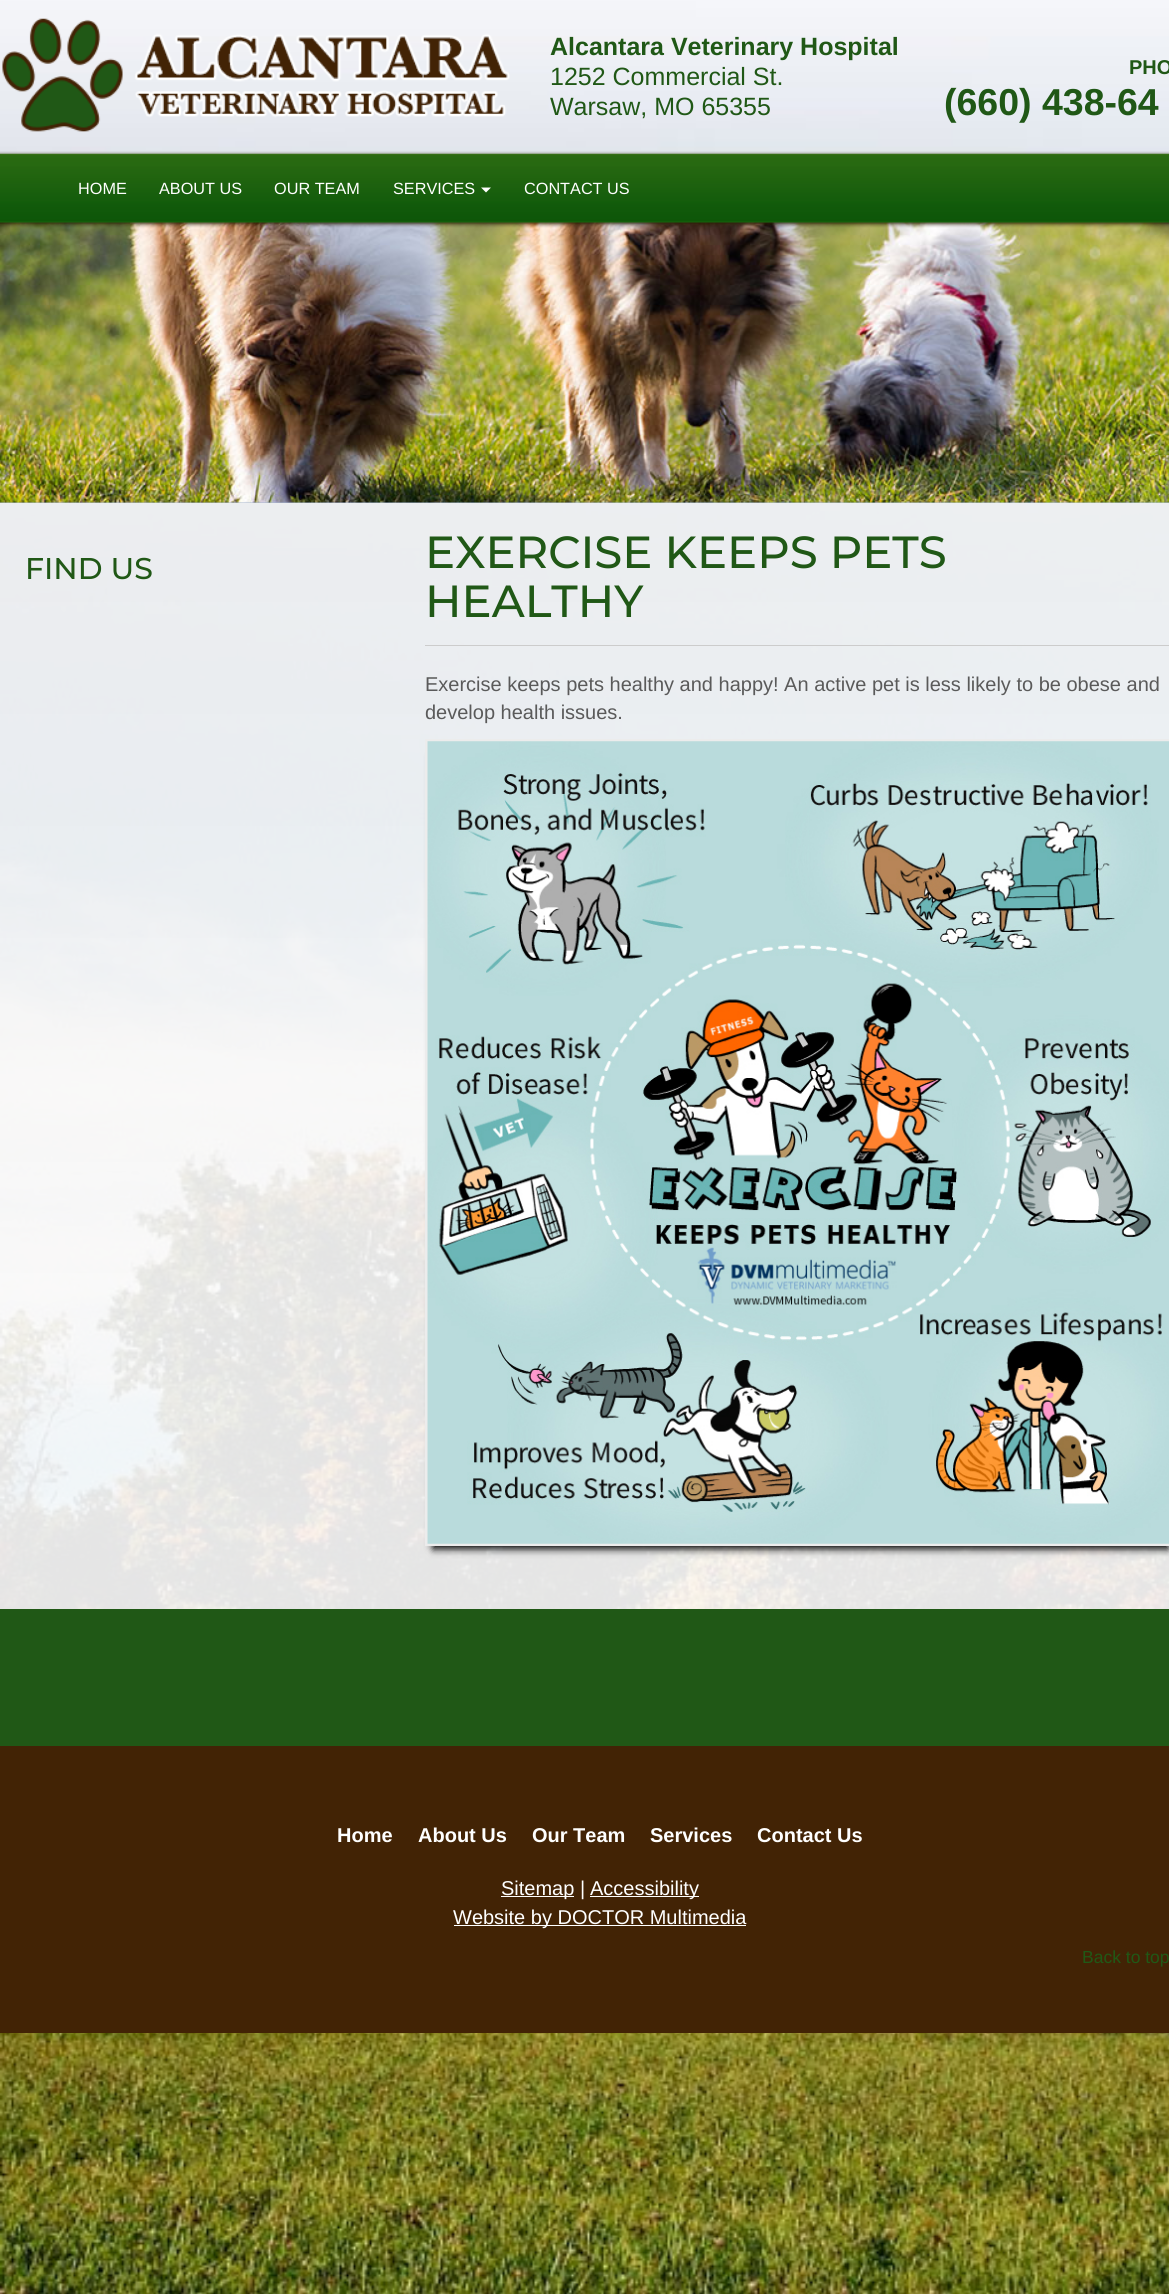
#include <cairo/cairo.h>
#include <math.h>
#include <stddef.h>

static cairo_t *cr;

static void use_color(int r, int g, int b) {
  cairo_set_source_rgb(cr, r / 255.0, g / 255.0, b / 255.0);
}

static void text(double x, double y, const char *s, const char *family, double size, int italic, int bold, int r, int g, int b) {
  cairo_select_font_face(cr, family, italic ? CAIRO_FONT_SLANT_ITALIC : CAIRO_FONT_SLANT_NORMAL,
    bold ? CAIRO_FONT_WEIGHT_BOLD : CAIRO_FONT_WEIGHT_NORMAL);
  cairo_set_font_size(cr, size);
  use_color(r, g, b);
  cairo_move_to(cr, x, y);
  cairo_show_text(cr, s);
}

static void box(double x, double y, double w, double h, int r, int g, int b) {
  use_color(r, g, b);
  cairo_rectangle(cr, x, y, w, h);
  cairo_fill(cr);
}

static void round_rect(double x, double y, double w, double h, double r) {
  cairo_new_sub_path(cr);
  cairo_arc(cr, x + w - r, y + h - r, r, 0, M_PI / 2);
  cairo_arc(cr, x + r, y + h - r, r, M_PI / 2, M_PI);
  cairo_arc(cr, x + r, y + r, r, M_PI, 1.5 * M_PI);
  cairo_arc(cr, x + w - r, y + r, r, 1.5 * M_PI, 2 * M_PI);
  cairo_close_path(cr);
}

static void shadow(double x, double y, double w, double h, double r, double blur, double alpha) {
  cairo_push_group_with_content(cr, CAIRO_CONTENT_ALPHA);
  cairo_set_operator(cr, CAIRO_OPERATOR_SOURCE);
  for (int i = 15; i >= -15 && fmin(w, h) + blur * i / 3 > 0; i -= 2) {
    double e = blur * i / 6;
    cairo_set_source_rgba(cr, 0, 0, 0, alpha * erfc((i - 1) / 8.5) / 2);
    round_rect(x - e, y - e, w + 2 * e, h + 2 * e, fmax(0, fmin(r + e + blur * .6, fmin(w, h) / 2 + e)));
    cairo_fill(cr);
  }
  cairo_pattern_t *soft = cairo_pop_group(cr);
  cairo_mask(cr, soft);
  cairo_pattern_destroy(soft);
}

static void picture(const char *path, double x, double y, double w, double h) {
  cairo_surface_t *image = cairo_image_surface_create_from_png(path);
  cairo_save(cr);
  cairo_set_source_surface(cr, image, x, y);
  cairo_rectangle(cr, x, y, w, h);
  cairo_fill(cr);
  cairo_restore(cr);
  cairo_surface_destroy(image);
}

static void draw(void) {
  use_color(255, 255, 255);
  cairo_paint(cr);
  picture("img_01.png", 0, 0, 1169, 2294);
  picture("img_02.png", 2, 18, 508, 114);
  picture("img_04.png", 0, 222, 1169, 281);
  picture("img_03.png", 0, 151, 1169, 96);
  use_color(255, 255, 255);
  cairo_new_path(cr);
  cairo_move_to(cr, 481, 187.5);
  cairo_line_to(cr, 491, 187.5);
  cairo_line_to(cr, 486, 192.5);
  cairo_close_path(cr);
  cairo_fill(cr);
  box(425, 645, 744, 1, 204, 204, 204);
  use_color(0, 0, 0);
  shadow(433, 756, 735, 793, 0, 4, 1);
  cairo_rectangle(cr, 426.5, 740.5, 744, 804);
  use_color(236, 236, 236);
  cairo_set_line_width(cr, 3);
  cairo_stroke(cr);
  picture("img_05.png", 427, 741, 742, 803);
  box(0, 1609, 1169, 137, 32, 88, 22);
  box(0, 1746, 1169, 287, 66, 35, 5);
  box(501, 1896, 73, 1, 255, 255, 255);
  box(590, 1896, 109, 1, 255, 255, 255);
  box(454, 1925, 292, 1, 255, 255, 255);
  text(550, 55, "Alcantara Veterinary Hospital", "Liberation Sans", 25, 0, 1, 32, 88, 22);
  text(550, 85, "1252 Commercial St.", "Liberation Sans", 25, 0, 0, 32, 88, 22);
  text(550, 115, "Warsaw, MO 65355", "Liberation Sans", 25, 0, 0, 32, 88, 22);
  text(1129, 74, "PHO", "Liberation Sans", 20, 0, 1, 32, 88, 22);
  text(944, 115, "(660) 438-64", "Liberation Sans", 37.5, 0, 1, 32, 88, 22);
  text(78, 194, "HOME", "Liberation Sans", 16.25, 0, 0, 255, 255, 255);
  text(159, 194, "ABOUT US", "Liberation Sans", 16.25, 0, 0, 255, 255, 255);
  text(274, 194, "OUR TEAM", "Liberation Sans", 16.25, 0, 0, 255, 255, 255);
  text(393, 194, "SERVICES", "Liberation Sans", 16.25, 0, 0, 255, 255, 255);
  text(524, 194, "CONTACT US", "Liberation Sans", 16.25, 0, 0, 255, 255, 255);
  text(25, 579, "FIND US", "Montserrat Medium", 30, 0, 0, 32, 88, 22);
  text(425, 568, "EXERCISE KEEPS PETS", "Montserrat Medium", 45, 0, 0, 32, 88, 22);
  text(425, 617, "HEALTHY", "Montserrat Medium", 45, 0, 0, 32, 88, 22);
  text(425, 691, "Exercise keeps pets healthy and happy! An active pet is less likely to be obese and", "Liberation Sans", 20, 0, 0, 90, 90, 90);
  text(425, 719, "develop health issues.", "Liberation Sans", 20, 0, 0, 90, 90, 90);
  text(337, 1842, "Home", "Liberation Sans", 20, 0, 1, 255, 255, 255);
  text(418, 1842, "About Us", "Liberation Sans", 20, 0, 1, 255, 255, 255);
  text(532, 1842, "Our Team", "Liberation Sans", 20, 0, 1, 255, 255, 255);
  text(650, 1842, "Services", "Liberation Sans", 20, 0, 1, 255, 255, 255);
  text(757, 1842, "Contact Us", "Liberation Sans", 20, 0, 1, 255, 255, 255);
  text(501, 1895, "Sitemap |", "Liberation Sans", 20, 0, 0, 255, 255, 255);
  text(590, 1895, "Accessibility", "Liberation Sans", 20, 0, 0, 255, 255, 255);
  text(453, 1924, "Website by DOCTOR Multimedia", "Liberation Sans", 20, 0, 0, 255, 255, 255);
  text(1082, 1963, "Back to top", "Liberation Sans", 17.5, 0, 0, 32, 88, 22);
}

int main(void) {
  cairo_surface_t *surface = cairo_image_surface_create(CAIRO_FORMAT_RGB24, 1169, 2294);
  cr = cairo_create(surface);
  cairo_font_options_t *options = cairo_font_options_create();
  cairo_font_options_set_hint_metrics(options, CAIRO_HINT_METRICS_OFF);
  cairo_font_options_set_hint_style(options, CAIRO_HINT_STYLE_NONE);
  cairo_set_font_options(cr, options);
  cairo_set_miter_limit(cr, 4);
  draw();
  cairo_surface_write_to_png(surface, "out.png");
  cairo_font_options_destroy(options);
  cairo_destroy(cr);
  cairo_surface_destroy(surface);
  return 0;
}
